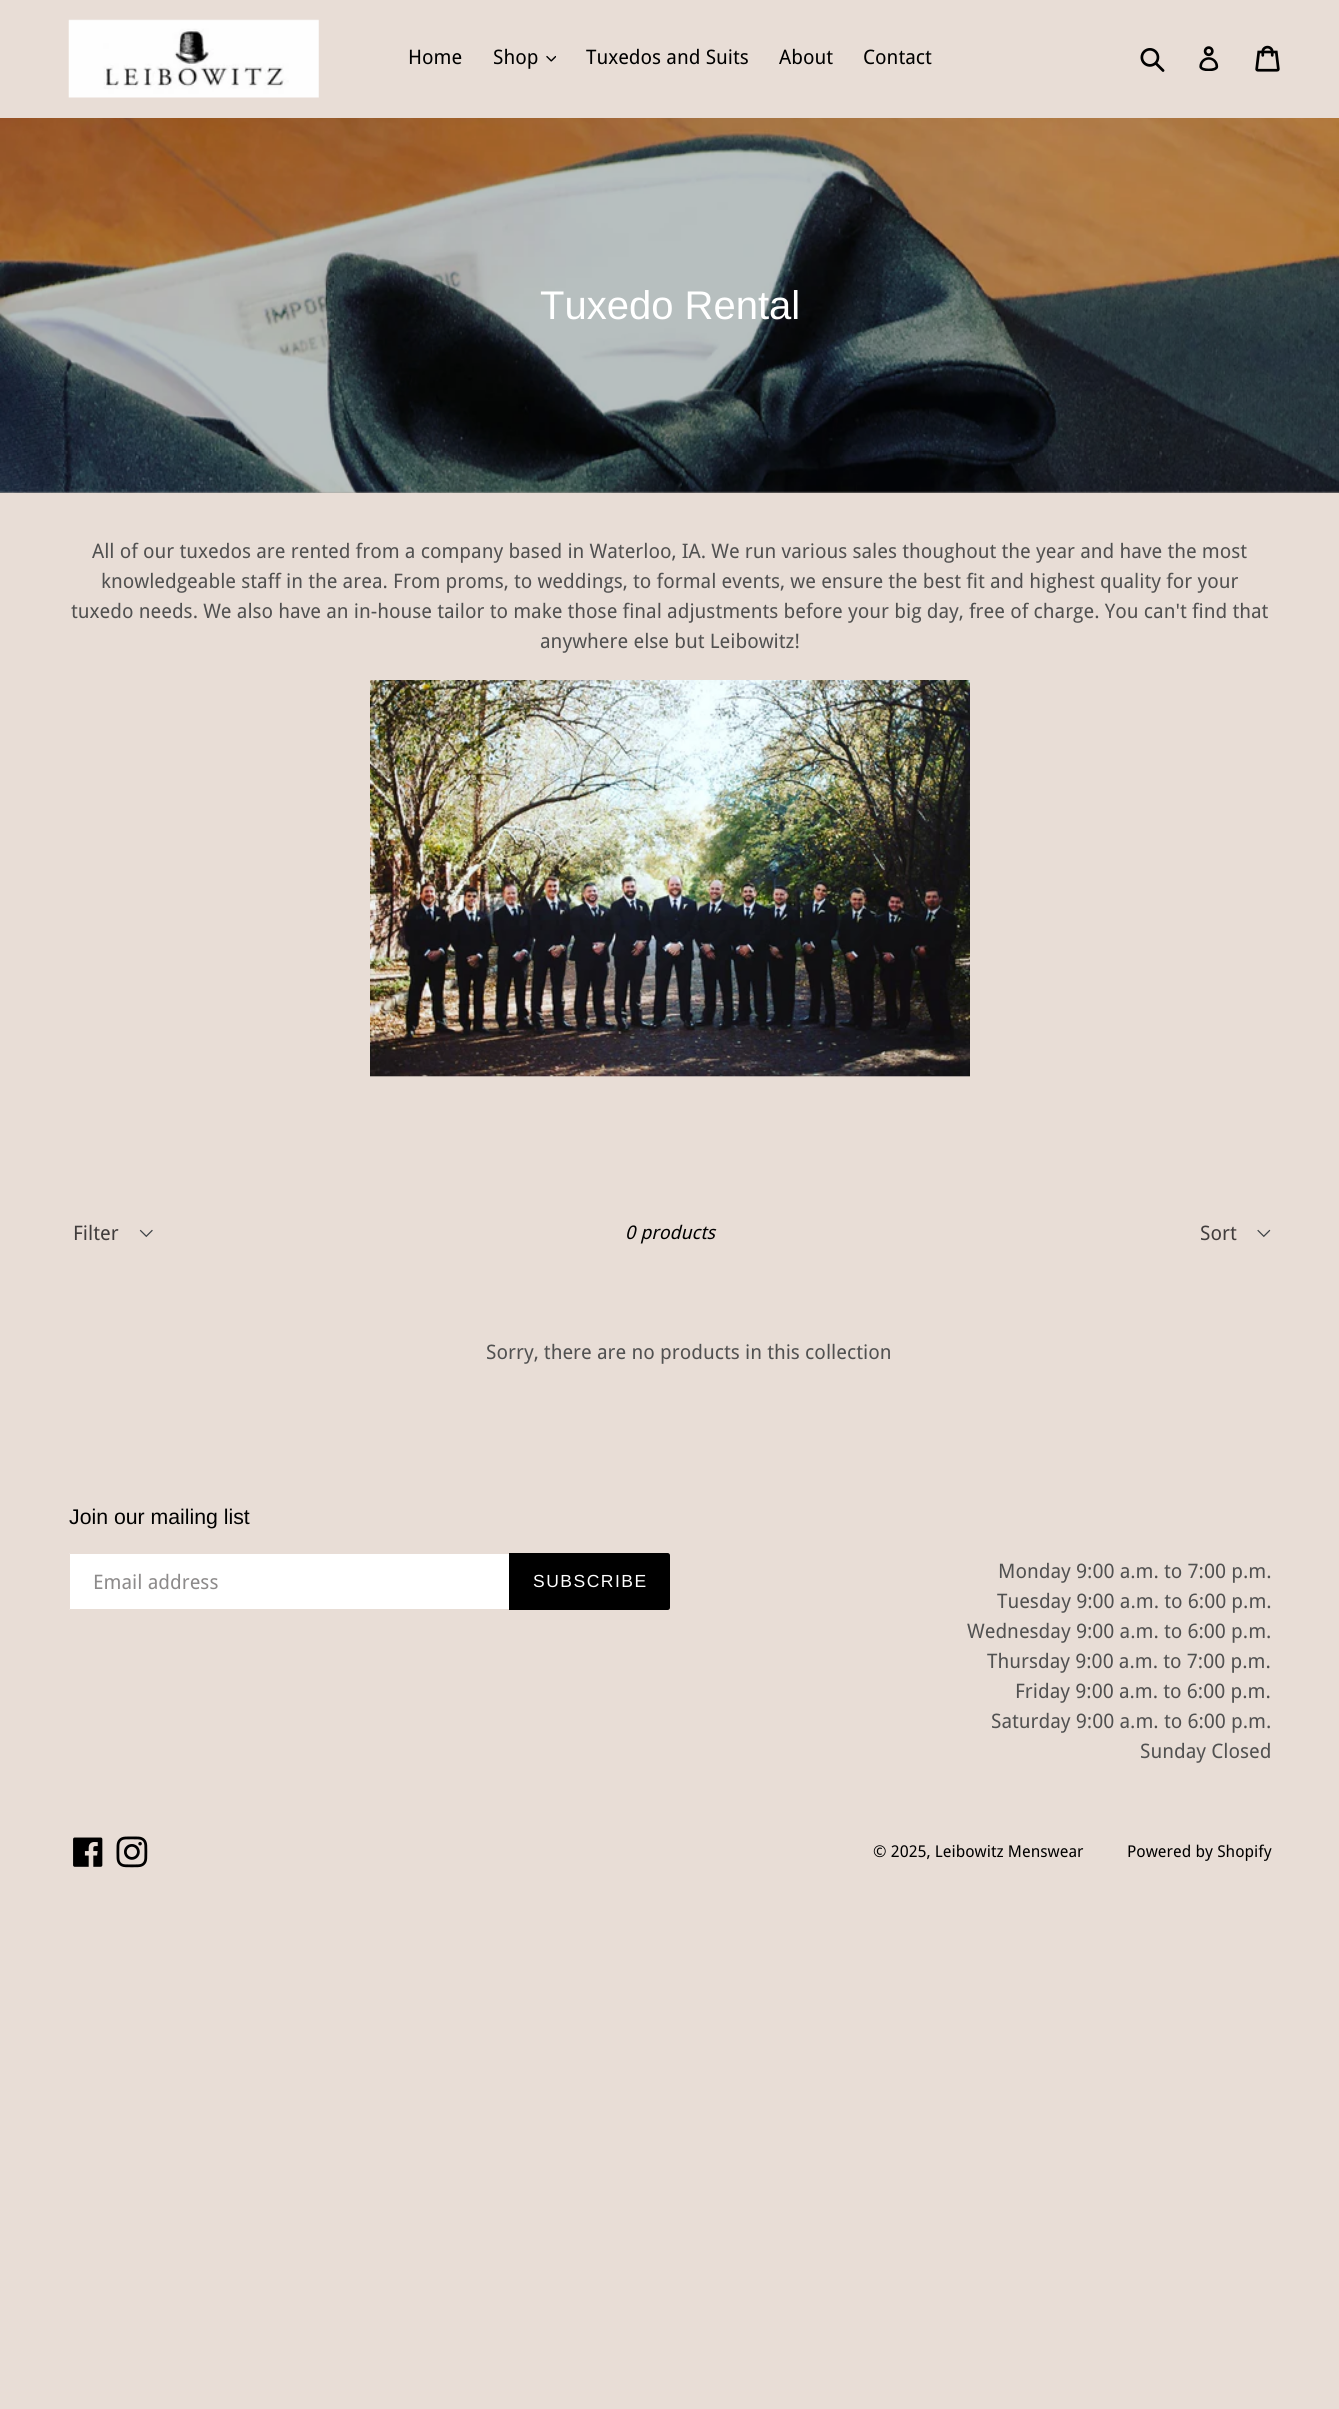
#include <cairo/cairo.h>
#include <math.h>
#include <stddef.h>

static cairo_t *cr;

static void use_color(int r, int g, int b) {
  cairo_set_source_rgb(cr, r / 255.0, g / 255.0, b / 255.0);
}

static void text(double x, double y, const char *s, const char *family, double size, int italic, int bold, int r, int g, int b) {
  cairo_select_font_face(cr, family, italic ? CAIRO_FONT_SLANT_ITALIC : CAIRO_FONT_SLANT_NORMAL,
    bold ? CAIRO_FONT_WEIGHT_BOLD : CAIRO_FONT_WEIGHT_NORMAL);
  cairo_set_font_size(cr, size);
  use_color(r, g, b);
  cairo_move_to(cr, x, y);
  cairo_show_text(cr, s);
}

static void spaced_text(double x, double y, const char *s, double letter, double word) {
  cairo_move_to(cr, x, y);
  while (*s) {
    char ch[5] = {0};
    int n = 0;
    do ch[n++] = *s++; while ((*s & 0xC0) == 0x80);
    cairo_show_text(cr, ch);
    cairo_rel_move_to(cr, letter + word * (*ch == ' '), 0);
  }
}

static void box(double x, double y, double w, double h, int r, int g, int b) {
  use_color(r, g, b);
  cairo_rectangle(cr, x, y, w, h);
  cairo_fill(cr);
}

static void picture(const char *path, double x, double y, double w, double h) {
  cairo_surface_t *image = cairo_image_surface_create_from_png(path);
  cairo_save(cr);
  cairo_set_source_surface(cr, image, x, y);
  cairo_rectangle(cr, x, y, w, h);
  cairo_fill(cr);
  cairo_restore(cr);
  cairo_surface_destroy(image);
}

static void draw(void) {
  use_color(232, 221, 214);
  cairo_paint(cr);
  box(0, 491, 1339, 2, 174, 166, 161);
  picture("img_01.png", 68, 19, 251, 79);
  picture("img_02.png", 546, 55, 10, 7);
  picture("img_03.png", 1140, 48, 25, 24);
  picture("img_04.png", 1199, 46, 20, 25);
  picture("img_05.png", 1255, 45, 25, 27);
  picture("img_06.png", 0, 118, 1339, 375);
  picture("img_07.png", 370, 680, 600, 397);
  picture("img_08.png", 139, 1229, 14, 9);
  picture("img_09.png", 1257, 1229, 14, 9);
  use_color(255, 255, 255);
  cairo_new_path(cr);
  cairo_move_to(cr, 71.5, 1553);
  cairo_line_to(cr, 509, 1553);
  cairo_line_to(cr, 509, 1610);
  cairo_line_to(cr, 71.5, 1610);
  cairo_curve_to(cr, 70, 1610, 69, 1609, 69, 1607.5);
  cairo_line_to(cr, 69, 1555.5);
  cairo_curve_to(cr, 69, 1554, 70, 1553, 71.5, 1553);
  cairo_close_path(cr);
  cairo_fill(cr);
  box(70, 1553, 439, 1, 232, 221, 214);
  box(70, 1609, 439, 1, 232, 221, 214);
  box(69, 1554, 1, 55, 232, 221, 214);
  use_color(0, 0, 0);
  cairo_new_path(cr);
  cairo_move_to(cr, 509, 1553);
  cairo_line_to(cr, 667.5, 1553);
  cairo_curve_to(cr, 669, 1553, 670, 1554, 670, 1555.5);
  cairo_line_to(cr, 670, 1607.5);
  cairo_curve_to(cr, 670, 1609, 669, 1610, 667.5, 1610);
  cairo_line_to(cr, 509, 1610);
  cairo_close_path(cr);
  cairo_fill(cr);
  picture("img_10.png", 73, 1837, 30, 30);
  picture("img_11.png", 116, 1836, 32, 32);
  text(408, 64, "Home", "Droid Sans", 20, 0, 0, 0, 0, 0);
  text(493, 64, "Shop", "Droid Sans", 20, 0, 0, 0, 0, 0);
  text(586, 64, "Tuxedos and Suits", "Droid Sans", 20, 0, 0, 0, 0, 0);
  text(779, 64, "About", "Droid Sans", 20, 0, 0, 0, 0, 0);
  text(863, 64, "Contact", "Droid Sans", 20, 0, 0, 0, 0, 0);
  text(540, 319, "Tuxedo Rental", "Liberation Sans", 40, 0, 0, 255, 255, 255);
  text(92, 558, "All of our tuxedos are rented from a company based in Waterloo, IA. We run various sales thoughout the year and have the most", "Droid Sans", 20, 0, 0, 81, 81, 81);
  text(101, 588, "knowledgeable staff in the area. From proms, to weddings, to formal events, we ensure the best fit and highest quality for your", "Droid Sans", 20, 0, 0, 81, 81, 81);
  text(71, 618, "tuxedo needs. We also have an in-house tailor to make those final adjustments before your big day, free of charge. You can't find that", "Droid Sans", 20, 0, 0, 81, 81, 81);
  text(540, 648, "anywhere else but Leibowitz!", "Droid Sans", 20, 0, 0, 81, 81, 81);
  text(73, 1240, "Filter", "Droid Sans", 20, 0, 0, 65, 61, 61);
  text(625, 1239, "0 products", "Droid Sans", 18.75, 1, 0, 0, 0, 0);
  text(1200, 1240, "Sort", "Droid Sans", 20, 0, 0, 65, 61, 61);
  text(486, 1359, "Sorry, there are no products in this collection", "Droid Sans", 20, 0, 0, 81, 81, 81);
  text(69, 1524, "Join our mailing list", "Liberation Sans", 21.25, 0, 0, 0, 0, 0);
  text(93, 1589, "Email address", "Droid Sans", 20, 0, 0, 141, 139, 139);
  cairo_select_font_face(cr, "Liberation Sans", CAIRO_FONT_SLANT_NORMAL, CAIRO_FONT_WEIGHT_NORMAL);
  cairo_set_font_size(cr, 17.5);
  use_color(255, 255, 255);
  spaced_text(533, 1587, "SUBSCRIBE", 1.5, 0);
  text(998, 1578, "Monday 9:00 a.m. to 7:00 p.m.", "Droid Sans", 20, 0, 0, 81, 81, 81);
  text(997, 1608, "Tuesday 9:00 a.m. to 6:00 p.m.", "Droid Sans", 20, 0, 0, 81, 81, 81);
  text(967, 1638, "Wednesday 9:00 a.m. to 6:00 p.m.", "Droid Sans", 20, 0, 0, 81, 81, 81);
  text(987, 1668, "Thursday 9:00 a.m. to 7:00 p.m.", "Droid Sans", 20, 0, 0, 81, 81, 81);
  text(1015, 1698, "Friday 9:00 a.m. to 6:00 p.m.", "Droid Sans", 20, 0, 0, 81, 81, 81);
  text(991, 1728, "Saturday 9:00 a.m. to 6:00 p.m.", "Droid Sans", 20, 0, 0, 81, 81, 81);
  text(1140, 1758, "Sunday Closed", "Droid Sans", 20, 0, 0, 81, 81, 81);
  text(873, 1857, "© 2025, Leibowitz Menswear", "Droid Sans", 16.25, 0, 0, 0, 0, 0);
  text(1127, 1857, "Powered by Shopify", "Droid Sans", 16.25, 0, 0, 0, 0, 0);
}

int main(void) {
  cairo_surface_t *surface = cairo_image_surface_create(CAIRO_FORMAT_RGB24, 1339, 2409);
  cr = cairo_create(surface);
  cairo_font_options_t *options = cairo_font_options_create();
  cairo_font_options_set_hint_metrics(options, CAIRO_HINT_METRICS_OFF);
  cairo_font_options_set_hint_style(options, CAIRO_HINT_STYLE_NONE);
  cairo_set_font_options(cr, options);
  cairo_set_miter_limit(cr, 4);
  draw();
  cairo_surface_write_to_png(surface, "out.png");
  cairo_font_options_destroy(options);
  cairo_destroy(cr);
  cairo_surface_destroy(surface);
  return 0;
}
